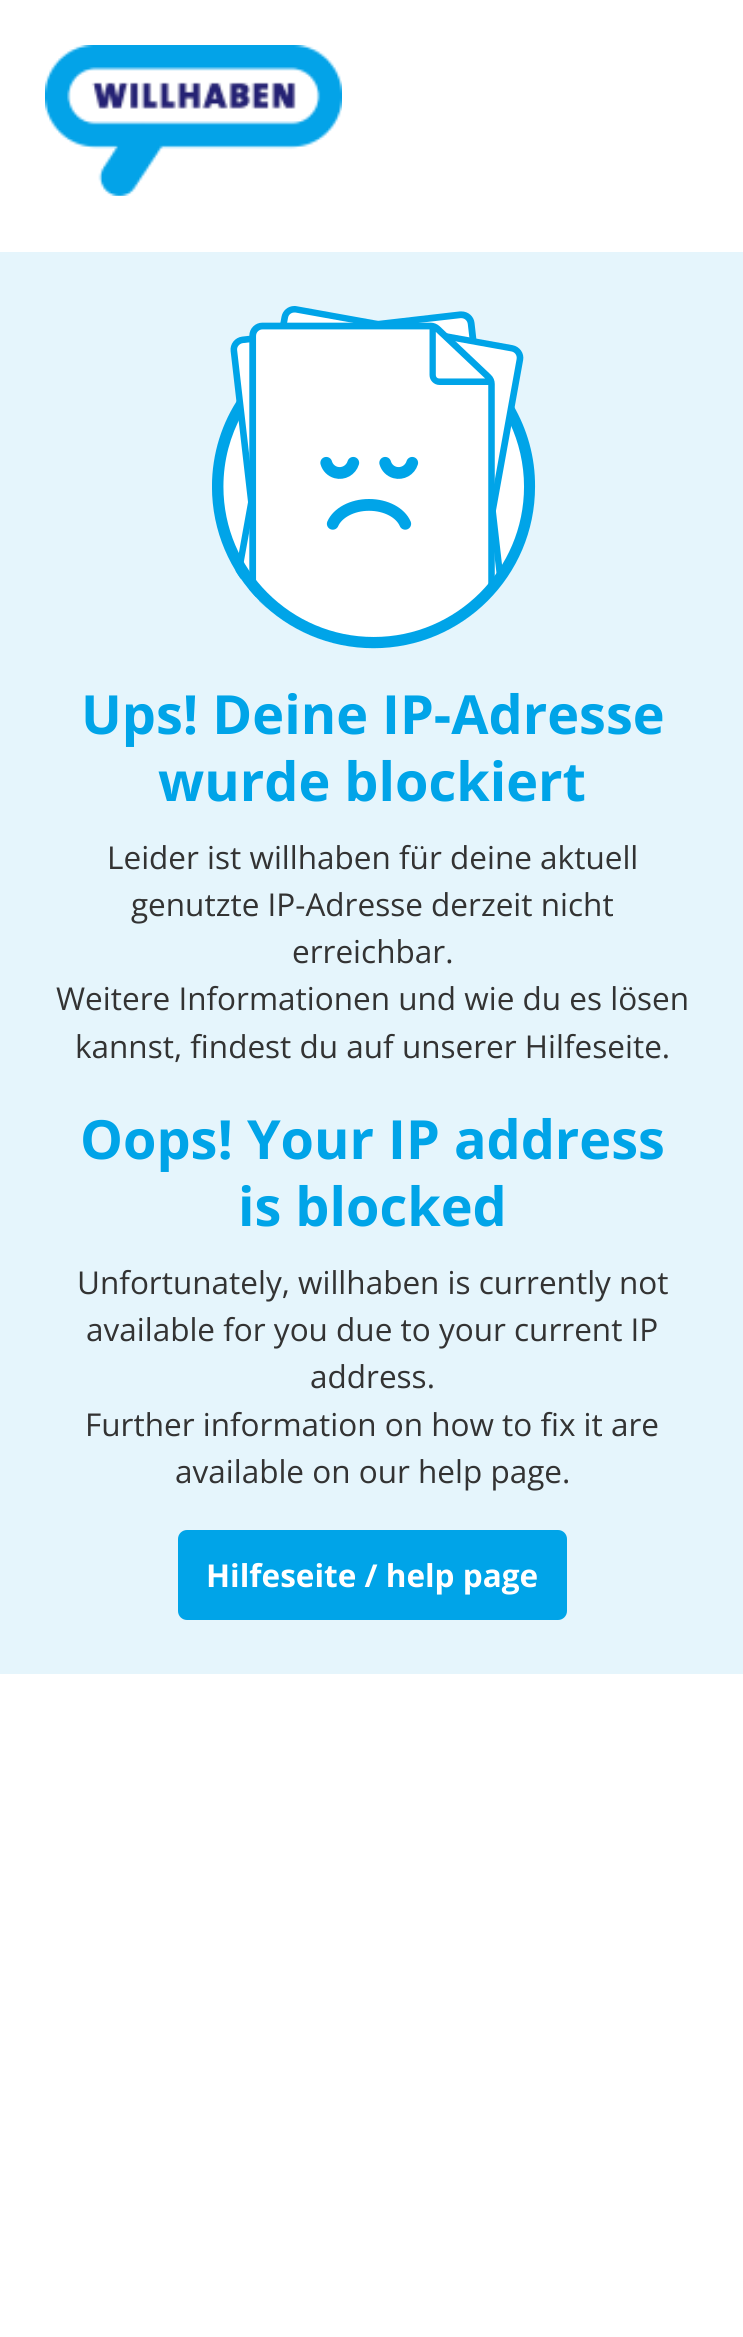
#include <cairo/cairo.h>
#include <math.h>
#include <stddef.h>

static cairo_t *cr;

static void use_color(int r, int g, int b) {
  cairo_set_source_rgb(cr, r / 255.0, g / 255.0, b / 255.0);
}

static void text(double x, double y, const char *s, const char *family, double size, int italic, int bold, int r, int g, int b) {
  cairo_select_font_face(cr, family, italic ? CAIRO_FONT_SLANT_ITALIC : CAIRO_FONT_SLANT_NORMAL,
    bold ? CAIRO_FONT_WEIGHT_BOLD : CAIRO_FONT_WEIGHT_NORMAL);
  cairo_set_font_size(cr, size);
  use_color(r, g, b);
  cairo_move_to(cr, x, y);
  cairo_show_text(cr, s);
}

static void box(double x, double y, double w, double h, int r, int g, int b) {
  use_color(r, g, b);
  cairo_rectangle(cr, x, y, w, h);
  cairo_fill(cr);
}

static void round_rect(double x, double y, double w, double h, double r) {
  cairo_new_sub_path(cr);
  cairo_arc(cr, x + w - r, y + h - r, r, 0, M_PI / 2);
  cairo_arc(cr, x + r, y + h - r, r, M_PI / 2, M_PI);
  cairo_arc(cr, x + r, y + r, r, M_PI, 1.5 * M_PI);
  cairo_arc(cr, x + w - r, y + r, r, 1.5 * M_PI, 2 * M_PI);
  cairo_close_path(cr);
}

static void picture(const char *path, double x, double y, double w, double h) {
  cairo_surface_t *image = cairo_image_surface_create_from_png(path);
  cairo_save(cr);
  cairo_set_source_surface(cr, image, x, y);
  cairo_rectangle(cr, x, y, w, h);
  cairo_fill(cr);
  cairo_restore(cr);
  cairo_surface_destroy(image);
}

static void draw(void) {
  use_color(255, 255, 255);
  cairo_paint(cr);
  picture("img_01.png", 45, 45, 297, 151);
  box(0, 252, 743, 1422, 229, 245, 252);
  picture("img_02.png", 212, 306, 324, 343);
  use_color(0, 164, 232);
  round_rect(179, 1531, 387, 88, 8);
  cairo_fill_preserve(cr);
  cairo_stroke(cr);
  text(81, 734, "Ups! Deine IP-Adresse", "Open Sans", 54, 0, 1, 0, 164, 232);
  text(158, 801, "wurde blockiert", "Open Sans", 54, 0, 1, 0, 164, 232);
  text(107, 869, "Leider ist willhaben für deine aktuell", "Open Sans", 31.5, 0, 0, 51, 51, 51);
  text(131, 916, "genutzte IP-Adresse derzeit nicht", "Open Sans", 31.5, 0, 0, 51, 51, 51);
  text(292, 963, "erreichbar.", "Open Sans", 31.5, 0, 0, 51, 51, 51);
  text(56, 1010, "Weitere Informationen und wie du es lösen", "Open Sans", 31.5, 0, 0, 51, 51, 51);
  text(75, 1058, "kannst, findest du auf unserer Hilfeseite.", "Open Sans", 31.5, 0, 0, 51, 51, 51);
  text(80, 1159, "Oops! Your IP address", "Open Sans", 54, 0, 1, 0, 164, 232);
  text(238, 1226, "is blocked", "Open Sans", 54, 0, 1, 0, 164, 232);
  text(77, 1294, "Unfortunately, willhaben is currently not", "Open Sans", 31.5, 0, 0, 51, 51, 51);
  text(86, 1341, "available for you due to your current IP", "Open Sans", 31.5, 0, 0, 51, 51, 51);
  text(310, 1388, "address.", "Open Sans", 31.5, 0, 0, 51, 51, 51);
  text(85, 1436, "Further information on how to fix it are", "Open Sans", 31.5, 0, 0, 51, 51, 51);
  text(175, 1483, "available on our help page.", "Open Sans", 31.5, 0, 0, 51, 51, 51);
  text(206, 1587, "Hilfeseite / help page", "Open Sans", 31.5, 0, 1, 255, 255, 255);
}

int main(void) {
  cairo_surface_t *surface = cairo_image_surface_create(CAIRO_FORMAT_RGB24, 743, 2337);
  cr = cairo_create(surface);
  cairo_font_options_t *options = cairo_font_options_create();
  cairo_font_options_set_hint_metrics(options, CAIRO_HINT_METRICS_OFF);
  cairo_font_options_set_hint_style(options, CAIRO_HINT_STYLE_NONE);
  cairo_set_font_options(cr, options);
  cairo_set_miter_limit(cr, 4);
  draw();
  cairo_surface_write_to_png(surface, "out.png");
  cairo_font_options_destroy(options);
  cairo_destroy(cr);
  cairo_surface_destroy(surface);
  return 0;
}
